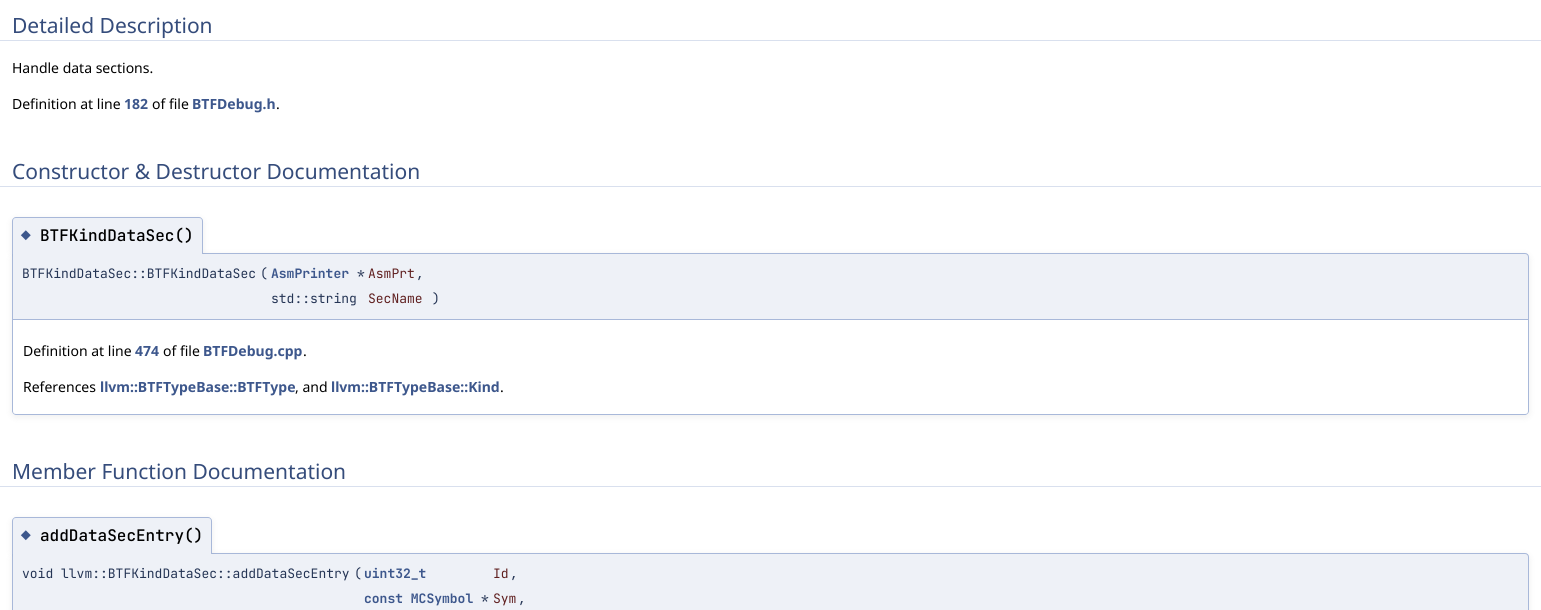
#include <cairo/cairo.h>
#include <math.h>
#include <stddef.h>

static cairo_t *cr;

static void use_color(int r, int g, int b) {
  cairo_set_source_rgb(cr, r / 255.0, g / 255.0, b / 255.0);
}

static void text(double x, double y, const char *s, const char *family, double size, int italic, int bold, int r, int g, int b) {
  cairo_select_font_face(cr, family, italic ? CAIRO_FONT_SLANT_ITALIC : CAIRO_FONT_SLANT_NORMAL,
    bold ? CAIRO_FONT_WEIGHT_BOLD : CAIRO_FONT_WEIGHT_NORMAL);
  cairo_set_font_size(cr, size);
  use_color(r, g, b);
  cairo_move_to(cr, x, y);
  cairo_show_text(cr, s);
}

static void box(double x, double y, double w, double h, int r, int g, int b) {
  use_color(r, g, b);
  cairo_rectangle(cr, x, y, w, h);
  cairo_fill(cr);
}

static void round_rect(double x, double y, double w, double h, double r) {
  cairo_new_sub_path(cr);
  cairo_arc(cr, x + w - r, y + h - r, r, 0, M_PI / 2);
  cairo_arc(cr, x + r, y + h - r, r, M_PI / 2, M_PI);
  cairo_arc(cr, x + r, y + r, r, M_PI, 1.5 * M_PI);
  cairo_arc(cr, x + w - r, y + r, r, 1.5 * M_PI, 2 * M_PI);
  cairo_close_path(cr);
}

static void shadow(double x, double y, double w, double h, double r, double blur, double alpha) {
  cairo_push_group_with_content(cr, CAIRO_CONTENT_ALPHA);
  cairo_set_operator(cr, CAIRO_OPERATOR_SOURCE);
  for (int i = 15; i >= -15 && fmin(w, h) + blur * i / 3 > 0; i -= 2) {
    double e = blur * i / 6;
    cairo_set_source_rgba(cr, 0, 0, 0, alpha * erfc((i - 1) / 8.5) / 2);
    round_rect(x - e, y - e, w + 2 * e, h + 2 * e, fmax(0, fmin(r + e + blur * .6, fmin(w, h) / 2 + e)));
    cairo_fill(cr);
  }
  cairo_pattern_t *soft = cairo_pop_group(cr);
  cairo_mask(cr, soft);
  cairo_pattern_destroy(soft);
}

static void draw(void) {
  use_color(255, 255, 255);
  cairo_paint(cr);
  use_color(217, 224, 238);
  cairo_new_path(cr);
  cairo_move_to(cr, 0, 7);
  cairo_line_to(cr, 0, 41);
  cairo_line_to(cr, 1517, 41);
  cairo_line_to(cr, 1517, 40);
  cairo_line_to(cr, 12, 40);
  cairo_line_to(cr, 12, 7);
  cairo_close_path(cr);
  cairo_fill(cr);
  cairo_new_path(cr);
  cairo_move_to(cr, 24, 40);
  cairo_line_to(cr, 24, 41);
  cairo_line_to(cr, 1541, 41);
  cairo_line_to(cr, 1541, 7);
  cairo_line_to(cr, 1529, 7);
  cairo_line_to(cr, 1529, 40);
  cairo_close_path(cr);
  cairo_fill(cr);
  box(0, 7, 12, 33, 255, 255, 255);
  box(1529, 7, 12, 33, 255, 255, 255);
  use_color(217, 224, 238);
  cairo_new_path(cr);
  cairo_move_to(cr, 0, 153);
  cairo_line_to(cr, 0, 187);
  cairo_line_to(cr, 1517, 187);
  cairo_line_to(cr, 1517, 186);
  cairo_line_to(cr, 12, 186);
  cairo_line_to(cr, 12, 153);
  cairo_close_path(cr);
  cairo_fill(cr);
  cairo_new_path(cr);
  cairo_move_to(cr, 24, 186);
  cairo_line_to(cr, 24, 187);
  cairo_line_to(cr, 1541, 187);
  cairo_line_to(cr, 1541, 153);
  cairo_line_to(cr, 1529, 153);
  cairo_line_to(cr, 1529, 186);
  cairo_close_path(cr);
  cairo_fill(cr);
  box(0, 153, 12, 33, 255, 255, 255);
  box(1529, 153, 12, 33, 255, 255, 255);
  cairo_save(cr);
  cairo_set_fill_rule(cr, CAIRO_FILL_RULE_EVEN_ODD);
  cairo_new_path(cr);
  cairo_move_to(cr, 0, 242);
  cairo_line_to(cr, 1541, 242);
  cairo_line_to(cr, 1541, 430);
  cairo_line_to(cr, 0, 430);
  cairo_close_path(cr);
  cairo_move_to(cr, 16, 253);
  cairo_line_to(cr, 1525, 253);
  cairo_curve_to(cr, 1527, 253, 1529, 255, 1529, 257);
  cairo_line_to(cr, 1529, 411);
  cairo_curve_to(cr, 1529, 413, 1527, 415, 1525, 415);
  cairo_line_to(cr, 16, 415);
  cairo_curve_to(cr, 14, 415, 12, 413, 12, 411);
  cairo_line_to(cr, 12, 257);
  cairo_curve_to(cr, 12, 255, 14, 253, 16, 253);
  cairo_close_path(cr);
  cairo_clip(cr);
  use_color(0, 0, 0);
  shadow(12, 255, 1517, 162, 4, 4, 0.07);
  cairo_restore(cr);
  use_color(238, 241, 247);
  cairo_new_path(cr);
  cairo_move_to(cr, 12.5, 253.5);
  cairo_line_to(cr, 1525, 253.5);
  cairo_curve_to(cr, 1527, 253.5, 1528.5, 255, 1528.5, 257);
  cairo_line_to(cr, 1528.5, 319.5);
  cairo_line_to(cr, 12.5, 319.5);
  cairo_close_path(cr);
  cairo_fill_preserve(cr);
  use_color(168, 184, 217);
  cairo_set_line_width(cr, 1);
  cairo_stroke(cr);
  use_color(0, 0, 0);
  shadow(12, 219, 191, 37, 4, 4, 0.07);
  use_color(238, 241, 247);
  cairo_new_path(cr);
  cairo_move_to(cr, 16, 217);
  cairo_line_to(cr, 199, 217);
  cairo_curve_to(cr, 201, 217, 203, 219, 203, 221);
  cairo_line_to(cr, 203, 254);
  cairo_line_to(cr, 12, 254);
  cairo_line_to(cr, 12, 221);
  cairo_curve_to(cr, 12, 219, 14, 217, 16, 217);
  cairo_close_path(cr);
  cairo_fill(cr);
  use_color(168, 184, 217);
  cairo_set_fill_rule(cr, CAIRO_FILL_RULE_EVEN_ODD);
  cairo_new_path(cr);
  cairo_move_to(cr, 16, 217);
  cairo_line_to(cr, 199, 217);
  cairo_curve_to(cr, 201, 217, 203, 219, 203, 221);
  cairo_line_to(cr, 203, 254);
  cairo_line_to(cr, 12, 254);
  cairo_line_to(cr, 12, 221);
  cairo_curve_to(cr, 12, 219, 14, 217, 16, 217);
  cairo_close_path(cr);
  cairo_move_to(cr, 16, 218);
  cairo_line_to(cr, 199, 218);
  cairo_curve_to(cr, 201, 218, 202, 219, 202, 221);
  cairo_line_to(cr, 202, 254);
  cairo_line_to(cr, 13, 254);
  cairo_line_to(cr, 13, 221);
  cairo_curve_to(cr, 13, 219, 14, 218, 16, 218);
  cairo_close_path(cr);
  cairo_fill(cr);
  use_color(238, 241, 247);
  cairo_new_path(cr);
  cairo_move_to(cr, 13, 254);
  cairo_line_to(cr, 210, 254);
  cairo_curve_to(cr, 213.5, 254, 216, 256.5, 216, 260);
  cairo_line_to(cr, 216, 264);
  cairo_line_to(cr, 13, 264);
  cairo_close_path(cr);
  cairo_fill(cr);
  use_color(168, 184, 217);
  cairo_new_path(cr);
  cairo_move_to(cr, 12, 320);
  cairo_line_to(cr, 1529, 320);
  cairo_line_to(cr, 1529, 411);
  cairo_curve_to(cr, 1529, 413, 1527, 415, 1525, 415);
  cairo_line_to(cr, 16, 415);
  cairo_curve_to(cr, 14, 415, 12, 413, 12, 411);
  cairo_close_path(cr);
  cairo_move_to(cr, 13, 320);
  cairo_line_to(cr, 1528, 320);
  cairo_line_to(cr, 1528, 411);
  cairo_curve_to(cr, 1528, 413, 1527, 414, 1525, 414);
  cairo_line_to(cr, 16, 414);
  cairo_curve_to(cr, 14, 414, 13, 413, 13, 411);
  cairo_close_path(cr);
  cairo_fill(cr);
  use_color(217, 224, 238);
  cairo_set_fill_rule(cr, CAIRO_FILL_RULE_WINDING);
  cairo_new_path(cr);
  cairo_move_to(cr, 0, 453);
  cairo_line_to(cr, 0, 487);
  cairo_line_to(cr, 1517, 487);
  cairo_line_to(cr, 1517, 486);
  cairo_line_to(cr, 12, 486);
  cairo_line_to(cr, 12, 453);
  cairo_close_path(cr);
  cairo_fill(cr);
  cairo_new_path(cr);
  cairo_move_to(cr, 24, 486);
  cairo_line_to(cr, 24, 487);
  cairo_line_to(cr, 1541, 487);
  cairo_line_to(cr, 1541, 453);
  cairo_line_to(cr, 1529, 453);
  cairo_line_to(cr, 1529, 486);
  cairo_close_path(cr);
  cairo_fill(cr);
  box(0, 453, 12, 33, 255, 255, 255);
  box(1529, 453, 12, 33, 255, 255, 255);
  use_color(0, 0, 0);
  shadow(12, 555, 1517, 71, 4, 4, 0.07);
  use_color(238, 241, 247);
  cairo_new_path(cr);
  cairo_move_to(cr, 12.5, 553.5);
  cairo_line_to(cr, 1525, 553.5);
  cairo_curve_to(cr, 1527, 553.5, 1528.5, 555, 1528.5, 557);
  cairo_line_to(cr, 1528.5, 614.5);
  cairo_line_to(cr, 12.5, 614.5);
  cairo_close_path(cr);
  cairo_fill_preserve(cr);
  use_color(168, 184, 217);
  cairo_stroke(cr);
  use_color(0, 0, 0);
  shadow(12, 519, 200, 37, 4, 4, 0.07);
  use_color(238, 241, 247);
  cairo_new_path(cr);
  cairo_move_to(cr, 16, 517);
  cairo_line_to(cr, 208, 517);
  cairo_curve_to(cr, 210, 517, 212, 519, 212, 521);
  cairo_line_to(cr, 212, 554);
  cairo_line_to(cr, 12, 554);
  cairo_line_to(cr, 12, 521);
  cairo_curve_to(cr, 12, 519, 14, 517, 16, 517);
  cairo_close_path(cr);
  cairo_fill(cr);
  use_color(168, 184, 217);
  cairo_set_fill_rule(cr, CAIRO_FILL_RULE_EVEN_ODD);
  cairo_new_path(cr);
  cairo_move_to(cr, 16, 517);
  cairo_line_to(cr, 208, 517);
  cairo_curve_to(cr, 210, 517, 212, 519, 212, 521);
  cairo_line_to(cr, 212, 554);
  cairo_line_to(cr, 12, 554);
  cairo_line_to(cr, 12, 521);
  cairo_curve_to(cr, 12, 519, 14, 517, 16, 517);
  cairo_close_path(cr);
  cairo_move_to(cr, 16, 518);
  cairo_line_to(cr, 208, 518);
  cairo_curve_to(cr, 210, 518, 211, 519, 211, 521);
  cairo_line_to(cr, 211, 554);
  cairo_line_to(cr, 13, 554);
  cairo_line_to(cr, 13, 521);
  cairo_curve_to(cr, 13, 519, 14, 518, 16, 518);
  cairo_close_path(cr);
  cairo_fill(cr);
  use_color(238, 241, 247);
  cairo_new_path(cr);
  cairo_move_to(cr, 13, 554);
  cairo_line_to(cr, 219, 554);
  cairo_curve_to(cr, 222.5, 554, 225, 556.5, 225, 560);
  cairo_line_to(cr, 225, 564);
  cairo_line_to(cr, 13, 564);
  cairo_close_path(cr);
  cairo_fill(cr);
  text(12, 33, "Detailed Description", "Noto Sans", 21, 0, 0, 53, 76, 123);
  text(12, 73, "Handle data sections.", "Noto Sans", 14, 0, 0, 0, 0, 0);
  text(12, 109, "Definition at line", "Noto Sans", 14, 0, 0, 0, 0, 0);
  text(124, 109, "182", "Noto Sans", 14, 0, 1, 61, 87, 140);
  text(152, 109, "of file", "Noto Sans", 14, 0, 0, 0, 0, 0);
  text(192, 109, "BTFDebug.h", "Noto Sans", 14, 0, 1, 61, 87, 140);
  text(276, 109, ".", "Noto Sans", 14, 0, 0, 0, 0, 0);
  text(12, 179, "Constructor & Destructor Documentation", "Noto Sans", 21, 0, 0, 53, 76, 123);
  text(21, 241, "◆", "JetBrains Mono", 16, 0, 0, 61, 87, 140);
  text(40, 241, "BTFKindDataSec()", "JetBrains Mono Medium", 16, 0, 0, 0, 0, 0);
  text(22, 278, "BTFKindDataSec::BTFKindDataSec", "JetBrains Mono", 13, 0, 0, 37, 53, 85);
  text(260, 278, "(", "JetBrains Mono", 13, 0, 0, 37, 53, 85);
  text(271, 278, "AsmPrinter", "JetBrains Mono", 13, 0, 1, 61, 87, 140);
  text(357, 278, "*", "JetBrains Mono", 13, 0, 0, 37, 53, 85);
  text(368, 278, "AsmPrt", "JetBrains Mono", 13, 0, 0, 96, 32, 32);
  text(416, 278, ",", "JetBrains Mono", 13, 0, 0, 37, 53, 85);
  text(271, 303, "std::string", "JetBrains Mono", 13, 0, 0, 37, 53, 85);
  text(368, 303, "SecName", "JetBrains Mono", 13, 0, 0, 96, 32, 32);
  text(432, 303, ")", "JetBrains Mono", 13, 0, 0, 37, 53, 85);
  text(23, 356, "Definition at line", "Noto Sans", 14, 0, 0, 0, 0, 0);
  text(135, 356, "474", "Noto Sans", 14, 0, 1, 61, 87, 140);
  text(163, 356, "of file", "Noto Sans", 14, 0, 0, 0, 0, 0);
  text(203, 356, "BTFDebug.cpp", "Noto Sans", 14, 0, 1, 61, 87, 140);
  text(303, 356, ".", "Noto Sans", 14, 0, 0, 0, 0, 0);
  text(23, 392, "References", "Noto Sans", 14, 0, 0, 0, 0, 0);
  text(100, 392, "llvm::BTFTypeBase::BTFType", "Noto Sans", 14, 0, 1, 61, 87, 140);
  text(295, 392, ", and", "Noto Sans", 14, 0, 0, 0, 0, 0);
  text(331, 392, "llvm::BTFTypeBase::Kind", "Noto Sans", 14, 0, 1, 61, 87, 140);
  text(500, 392, ".", "Noto Sans", 14, 0, 0, 0, 0, 0);
  text(12, 479, "Member Function Documentation", "Noto Sans", 21, 0, 0, 53, 76, 123);
  text(21, 541, "◆", "JetBrains Mono", 16, 0, 0, 61, 87, 140);
  text(40, 541, "addDataSecEntry()", "JetBrains Mono Medium", 16, 0, 0, 0, 0, 0);
  text(22, 578, "void llvm::BTFKindDataSec::addDataSecEntry", "JetBrains Mono", 13, 0, 0, 37, 53, 85);
  text(354, 578, "(", "JetBrains Mono", 13, 0, 0, 37, 53, 85);
  text(364, 578, "uint32_t", "JetBrains Mono", 13, 0, 1, 61, 87, 140);
  text(493, 578, "Id", "JetBrains Mono", 13, 0, 0, 96, 32, 32);
  text(510, 578, ",", "JetBrains Mono", 13, 0, 0, 37, 53, 85);
  text(364, 603, "const MCSymbol", "JetBrains Mono", 13, 0, 1, 61, 87, 140);
  text(481, 603, "*", "JetBrains Mono", 13, 0, 0, 37, 53, 85);
  text(493, 603, "Sym", "JetBrains Mono", 13, 0, 0, 96, 32, 32);
  text(518, 603, ",", "JetBrains Mono", 13, 0, 0, 37, 53, 85);
}

int main(void) {
  cairo_surface_t *surface = cairo_image_surface_create(CAIRO_FORMAT_RGB24, 1541, 610);
  cr = cairo_create(surface);
  cairo_font_options_t *options = cairo_font_options_create();
  cairo_font_options_set_hint_metrics(options, CAIRO_HINT_METRICS_OFF);
  cairo_font_options_set_hint_style(options, CAIRO_HINT_STYLE_NONE);
  cairo_set_font_options(cr, options);
  cairo_set_miter_limit(cr, 4);
  draw();
  cairo_surface_write_to_png(surface, "out.png");
  cairo_font_options_destroy(options);
  cairo_destroy(cr);
  cairo_surface_destroy(surface);
  return 0;
}
